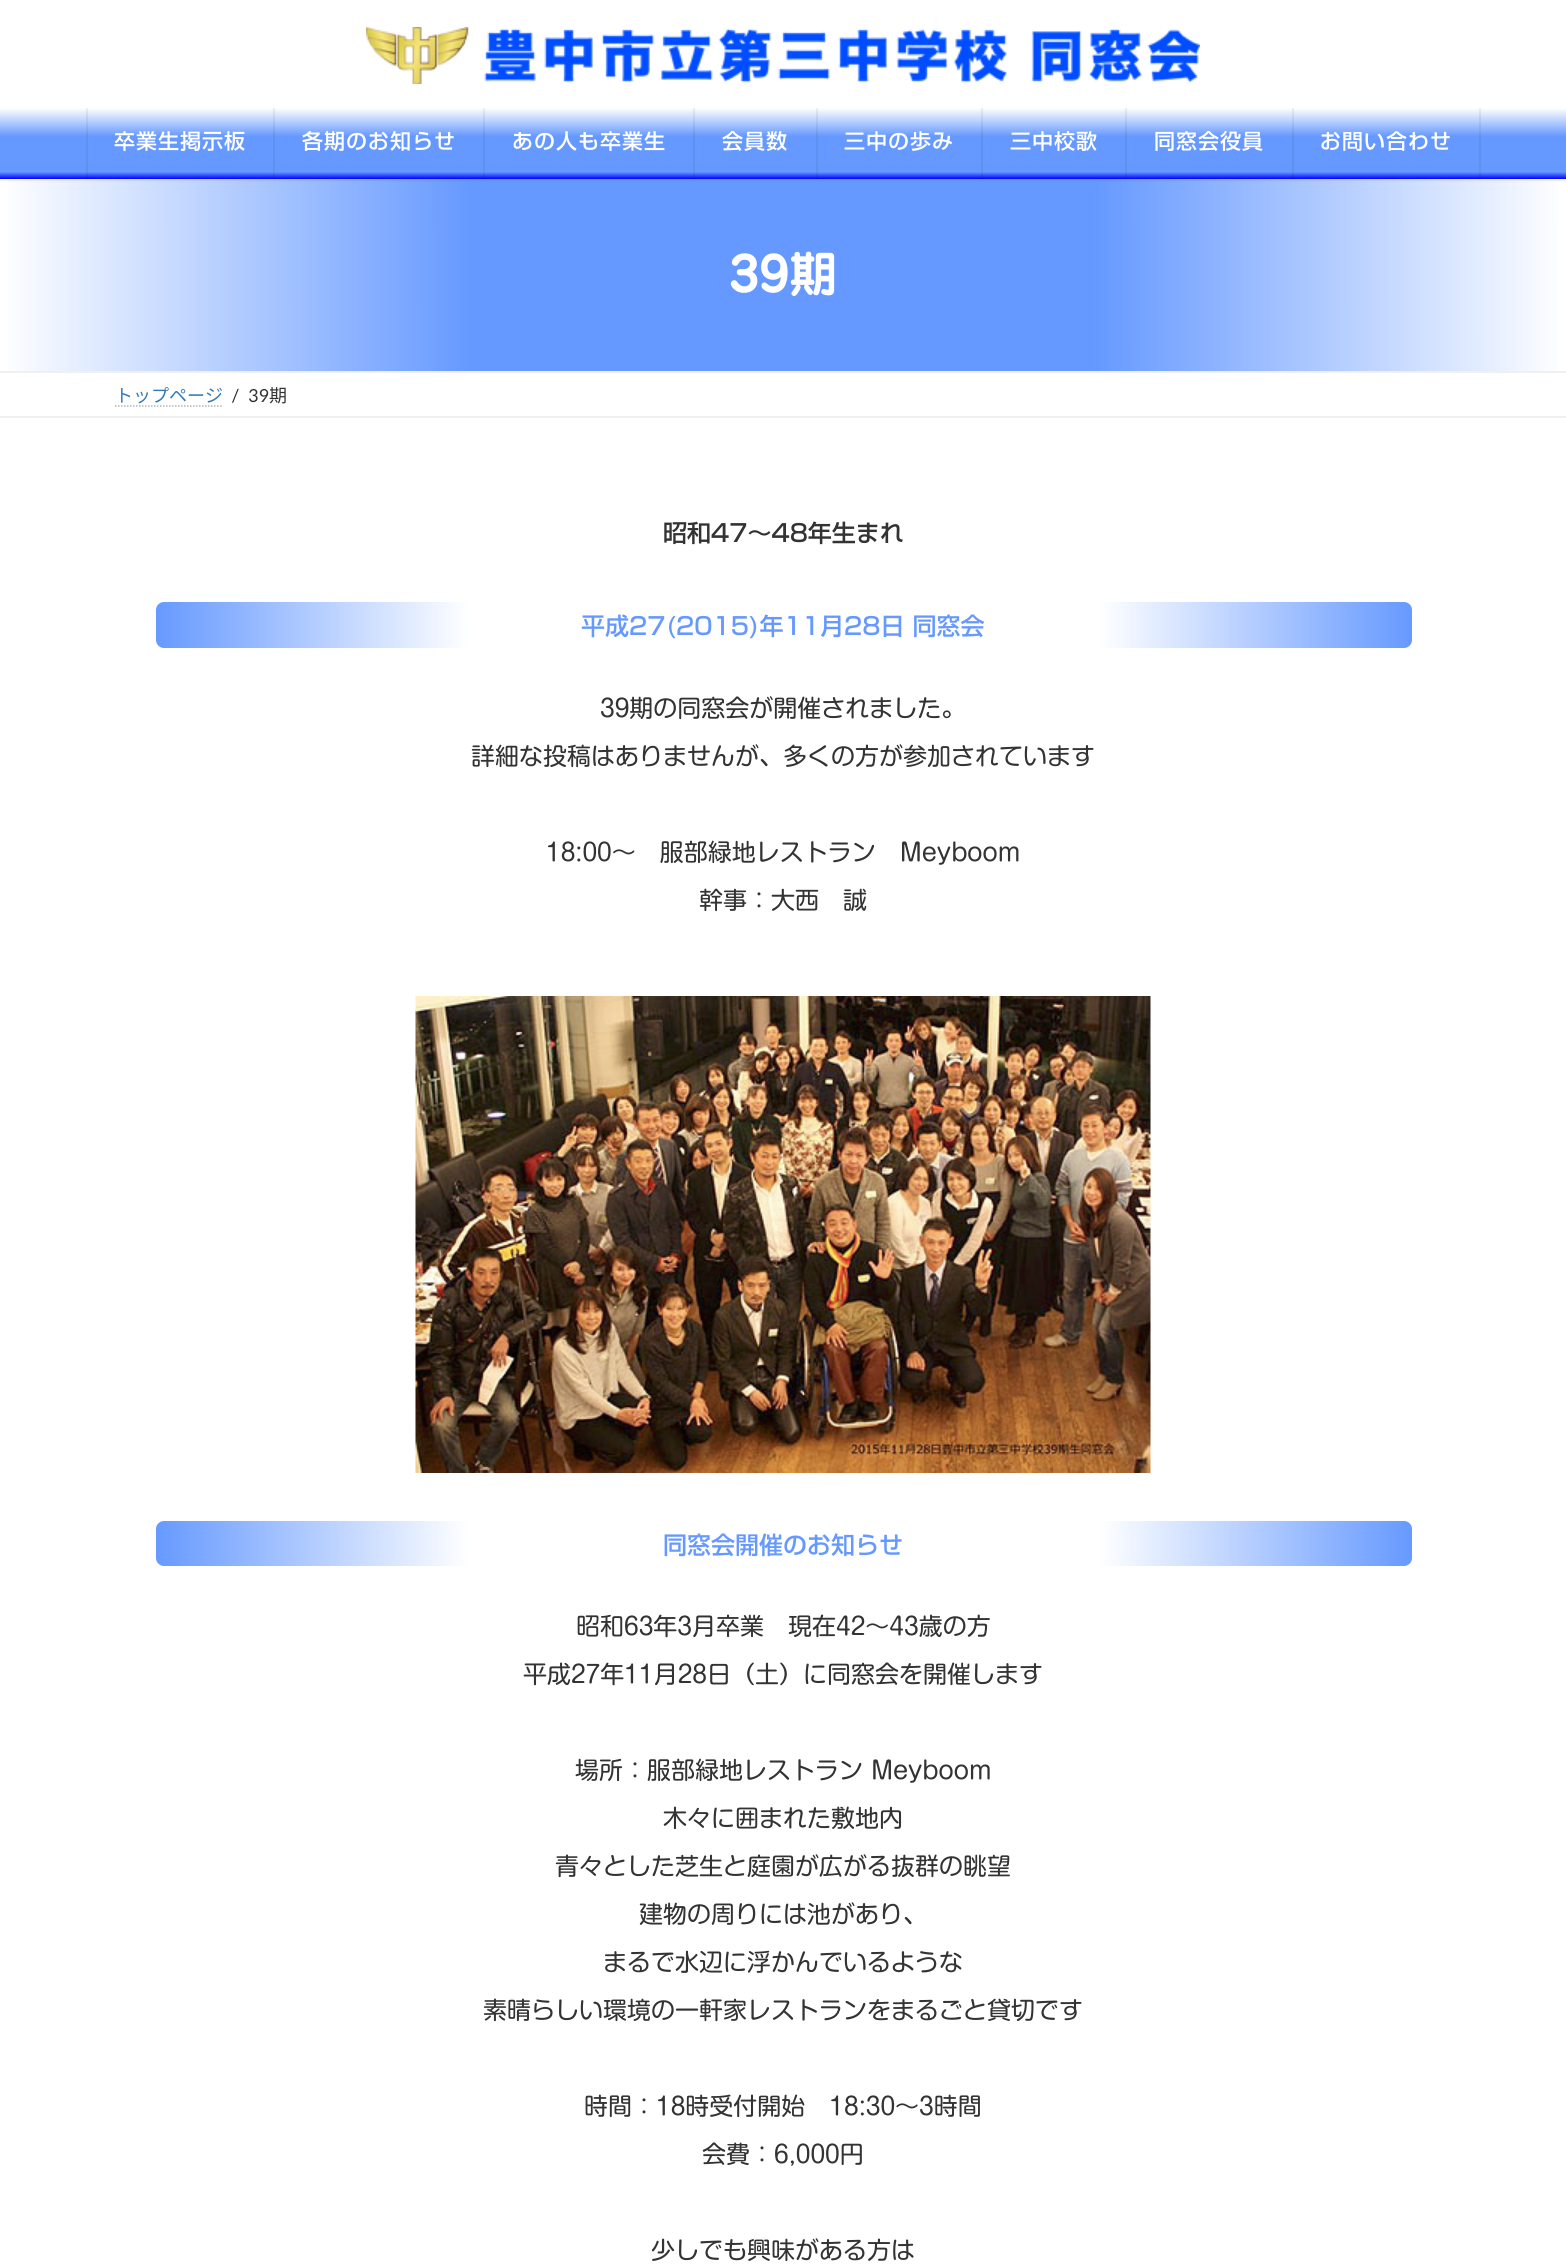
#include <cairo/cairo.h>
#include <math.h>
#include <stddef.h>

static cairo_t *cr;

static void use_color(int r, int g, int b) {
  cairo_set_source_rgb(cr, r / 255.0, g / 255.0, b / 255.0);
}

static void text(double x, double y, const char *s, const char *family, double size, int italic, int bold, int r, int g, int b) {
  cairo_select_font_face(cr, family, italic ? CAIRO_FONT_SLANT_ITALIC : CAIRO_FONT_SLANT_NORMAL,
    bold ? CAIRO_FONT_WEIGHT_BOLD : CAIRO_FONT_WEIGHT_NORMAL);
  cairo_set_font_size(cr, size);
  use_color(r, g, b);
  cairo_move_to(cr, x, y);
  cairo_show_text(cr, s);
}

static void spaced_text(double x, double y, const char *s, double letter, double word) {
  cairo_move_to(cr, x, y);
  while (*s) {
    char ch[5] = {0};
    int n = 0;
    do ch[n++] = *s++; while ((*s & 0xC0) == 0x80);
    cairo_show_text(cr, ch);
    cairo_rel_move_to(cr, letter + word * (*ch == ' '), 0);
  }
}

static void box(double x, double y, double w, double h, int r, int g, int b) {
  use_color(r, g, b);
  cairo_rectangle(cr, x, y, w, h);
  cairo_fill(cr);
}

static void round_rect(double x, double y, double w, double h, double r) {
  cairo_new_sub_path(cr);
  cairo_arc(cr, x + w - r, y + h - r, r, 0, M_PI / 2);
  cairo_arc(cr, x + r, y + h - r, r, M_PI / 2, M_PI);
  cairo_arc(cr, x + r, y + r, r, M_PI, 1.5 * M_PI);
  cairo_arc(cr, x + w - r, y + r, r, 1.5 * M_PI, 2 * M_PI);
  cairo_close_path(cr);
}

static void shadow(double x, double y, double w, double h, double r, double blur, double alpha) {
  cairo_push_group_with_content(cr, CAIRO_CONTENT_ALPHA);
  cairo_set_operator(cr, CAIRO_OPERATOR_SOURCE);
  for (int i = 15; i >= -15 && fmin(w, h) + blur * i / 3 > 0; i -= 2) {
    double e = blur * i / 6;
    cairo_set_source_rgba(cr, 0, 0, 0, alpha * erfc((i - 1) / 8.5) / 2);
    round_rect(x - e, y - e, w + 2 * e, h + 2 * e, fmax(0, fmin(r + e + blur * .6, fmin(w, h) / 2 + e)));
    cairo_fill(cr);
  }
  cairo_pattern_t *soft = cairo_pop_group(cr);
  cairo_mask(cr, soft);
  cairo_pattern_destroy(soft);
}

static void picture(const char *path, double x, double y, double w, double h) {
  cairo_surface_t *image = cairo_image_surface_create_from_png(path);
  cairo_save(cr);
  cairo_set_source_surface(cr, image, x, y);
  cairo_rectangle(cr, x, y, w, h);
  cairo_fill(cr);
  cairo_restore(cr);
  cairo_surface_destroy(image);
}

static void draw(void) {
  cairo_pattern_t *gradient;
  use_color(255, 255, 255);
  cairo_paint(cr);
  gradient = cairo_pattern_create_linear(0, 275, 1566, 274);
  cairo_pattern_add_color_stop_rgba(gradient, 0, 1, 1, 1, 1);
  cairo_pattern_add_color_stop_rgba(gradient, 0.3, 0.4, 0.6, 1, 1);
  cairo_pattern_add_color_stop_rgba(gradient, 0.7, 0.4, 0.6, 1, 1);
  cairo_pattern_add_color_stop_rgba(gradient, 1, 1, 1, 1, 1);
  cairo_set_source(cr, gradient);
  cairo_pattern_destroy(gradient);
  cairo_rectangle(cr, 8, 179, 1550, 192);
  cairo_fill(cr);
  use_color(0, 0, 0);
  shadow(0, 2, 1566, 178, 0, 2, 0.05);
  box(0, 0, 1566, 108, 255, 255, 255);
  picture("img_01.png", 366, 27, 834, 57);
  gradient = cairo_pattern_create_linear(783, 108, 783, 179);
  cairo_pattern_add_color_stop_rgba(gradient, 0, 1, 1, 1, 1);
  cairo_pattern_add_color_stop_rgba(gradient, 0.4, 0.4, 0.6, 1, 1);
  cairo_pattern_add_color_stop_rgba(gradient, 0.9, 0.4, 0.6, 1, 1);
  cairo_pattern_add_color_stop_rgba(gradient, 1, 0, 0, 1, 1);
  cairo_set_source(cr, gradient);
  cairo_pattern_destroy(gradient);
  cairo_rectangle(cr, 0, 108, 1566, 71);
  cairo_fill(cr);
  cairo_set_source_rgba(cr, 0, 0, 0, 0.06);
  cairo_rectangle(cr, 273, 108, 2, 71);
  cairo_fill(cr);
  cairo_rectangle(cr, 86, 108, 2, 71);
  cairo_fill(cr);
  cairo_rectangle(cr, 483, 108, 2, 71);
  cairo_fill(cr);
  cairo_rectangle(cr, 693, 108, 2, 71);
  cairo_fill(cr);
  cairo_rectangle(cr, 816, 108, 2, 71);
  cairo_fill(cr);
  cairo_rectangle(cr, 981, 108, 2, 71);
  cairo_fill(cr);
  cairo_rectangle(cr, 1125, 108, 2, 71);
  cairo_fill(cr);
  cairo_rectangle(cr, 1292, 108, 2, 71);
  cairo_fill(cr);
  cairo_rectangle(cr, 1479, 108, 2, 71);
  cairo_fill(cr);
  box(0, 371, 1566, 2, 240, 240, 240);
  box(0, 416, 1566, 2, 240, 240, 240);
  cairo_new_path(cr);
  cairo_move_to(cr, 115, 406);
  cairo_line_to(cr, 223, 406);
  use_color(179, 179, 179);
  cairo_set_line_width(cr, 1.5);
  cairo_set_dash(cr, (double[]){1.5, 1.5}, 2, 0);
  cairo_stroke(cr);
  gradient = cairo_pattern_create_linear(156, 625, 1412, 625);
  cairo_pattern_add_color_stop_rgba(gradient, 0, 0.4, 0.6, 1, 1);
  cairo_pattern_add_color_stop_rgba(gradient, 0.25, 1, 1, 1, 1);
  cairo_pattern_add_color_stop_rgba(gradient, 0.75, 1, 1, 1, 1);
  cairo_pattern_add_color_stop_rgba(gradient, 1, 0.4, 0.6, 1, 1);
  cairo_set_source(cr, gradient);
  cairo_pattern_destroy(gradient);
  round_rect(156, 602, 1256, 46, 8);
  cairo_fill(cr);
  picture("img_02.png", 415, 996, 736, 477);
  gradient = cairo_pattern_create_linear(156, 1544, 1412, 1544);
  cairo_pattern_add_color_stop_rgba(gradient, 0, 0.4, 0.6, 1, 1);
  cairo_pattern_add_color_stop_rgba(gradient, 0.25, 1, 1, 1, 1);
  cairo_pattern_add_color_stop_rgba(gradient, 0.75, 1, 1, 1, 1);
  cairo_pattern_add_color_stop_rgba(gradient, 1, 0.4, 0.6, 1, 1);
  cairo_set_source(cr, gradient);
  cairo_pattern_destroy(gradient);
  round_rect(156, 1521, 1256, 45, 8);
  cairo_fill(cr);
  cairo_select_font_face(cr, "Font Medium", CAIRO_FONT_SLANT_NORMAL, CAIRO_FONT_WEIGHT_NORMAL);
  cairo_set_font_size(cr, 21);
  use_color(255, 255, 255);
  spaced_text(114, 149, "卒業生掲示板", 1, 0);
  spaced_text(302, 149, "各期のお知らせ", 1, 0);
  spaced_text(512, 149, "あの人も卒業生", 1, 0);
  spaced_text(722, 149, "会員数", 1, 0);
  spaced_text(844, 149, "三中の歩み", 1, 0);
  spaced_text(1010, 149, "三中校歌", 1, 0);
  spaced_text(1154, 149, "同窓会役員", 1, 0);
  spaced_text(1320, 149, "お問い合わせ", 1, 0);
  text(729, 292, "39期", "Font SemiBold", 48, 0, 0, 255, 255, 255);
  text(115, 402, "トップページ", "Noto Sans JP", 18, 0, 0, 51, 122, 183);
  text(232, 402, "/", "Lato", 18, 0, 0, 51, 51, 51);
  text(248, 402, "39", "Lato", 18, 0, 0, 51, 51, 51);
  text(269, 402, "期", "Noto Sans JP", 18, 0, 0, 51, 51, 51);
  text(663, 542, "昭和47～48年生まれ", "Font Medium", 24, 0, 0, 51, 51, 51);
  text(581, 635, "平成27(2015)年11月28日 同窓会", "Font Medium", 24, 0, 0, 102, 153, 255);
  text(600, 717, "39期の同窓会が開催されました。", "Font", 24, 0, 0, 51, 51, 51);
  text(471, 765, "詳細な投稿はありませんが、多くの方が参加されています", "Font", 24, 0, 0, 51, 51, 51);
  text(546, 861, "18:00～　服部緑地レストラン　Meyboom", "Font", 24, 0, 0, 51, 51, 51);
  text(699, 909, "幹事：大西　誠", "Font", 24, 0, 0, 51, 51, 51);
  text(663, 1554, "同窓会開催のお知らせ", "Font Medium", 24, 0, 0, 102, 153, 255);
  text(576, 1635, "昭和63年3月卒業　現在42～43歳の方", "Font", 24, 0, 0, 51, 51, 51);
  text(523, 1683, "平成27年11月28日（土）に同窓会を開催します", "Font", 24, 0, 0, 51, 51, 51);
  text(575, 1779, "場所：服部緑地レストラン Meyboom", "Font", 24, 0, 0, 51, 51, 51);
  text(663, 1827, "木々に囲まれた敷地内", "Font", 24, 0, 0, 51, 51, 51);
  text(555, 1875, "青々とした芝生と庭園が広がる抜群の眺望", "Font", 24, 0, 0, 51, 51, 51);
  text(639, 1923, "建物の周りには池があり、", "Font", 24, 0, 0, 51, 51, 51);
  text(603, 1971, "まるで水辺に浮かんでいるような", "Font", 24, 0, 0, 51, 51, 51);
  text(483, 2019, "素晴らしい環境の一軒家レストランをまるごと貸切です", "Font", 24, 0, 0, 51, 51, 51);
  text(584, 2115, "時間：18時受付開始　18:30～3時間", "Font", 24, 0, 0, 51, 51, 51);
  text(702, 2163, "会費：6,000円", "Font", 24, 0, 0, 51, 51, 51);
  text(651, 2259, "少しでも興味がある方は", "Font", 24, 0, 0, 51, 51, 51);
}

int main(void) {
  cairo_surface_t *surface = cairo_image_surface_create(CAIRO_FORMAT_RGB24, 1566, 2267);
  cr = cairo_create(surface);
  cairo_font_options_t *options = cairo_font_options_create();
  cairo_font_options_set_hint_metrics(options, CAIRO_HINT_METRICS_OFF);
  cairo_font_options_set_hint_style(options, CAIRO_HINT_STYLE_NONE);
  cairo_set_font_options(cr, options);
  cairo_set_miter_limit(cr, 4);
  draw();
  cairo_surface_write_to_png(surface, "out.png");
  cairo_font_options_destroy(options);
  cairo_destroy(cr);
  cairo_surface_destroy(surface);
  return 0;
}
